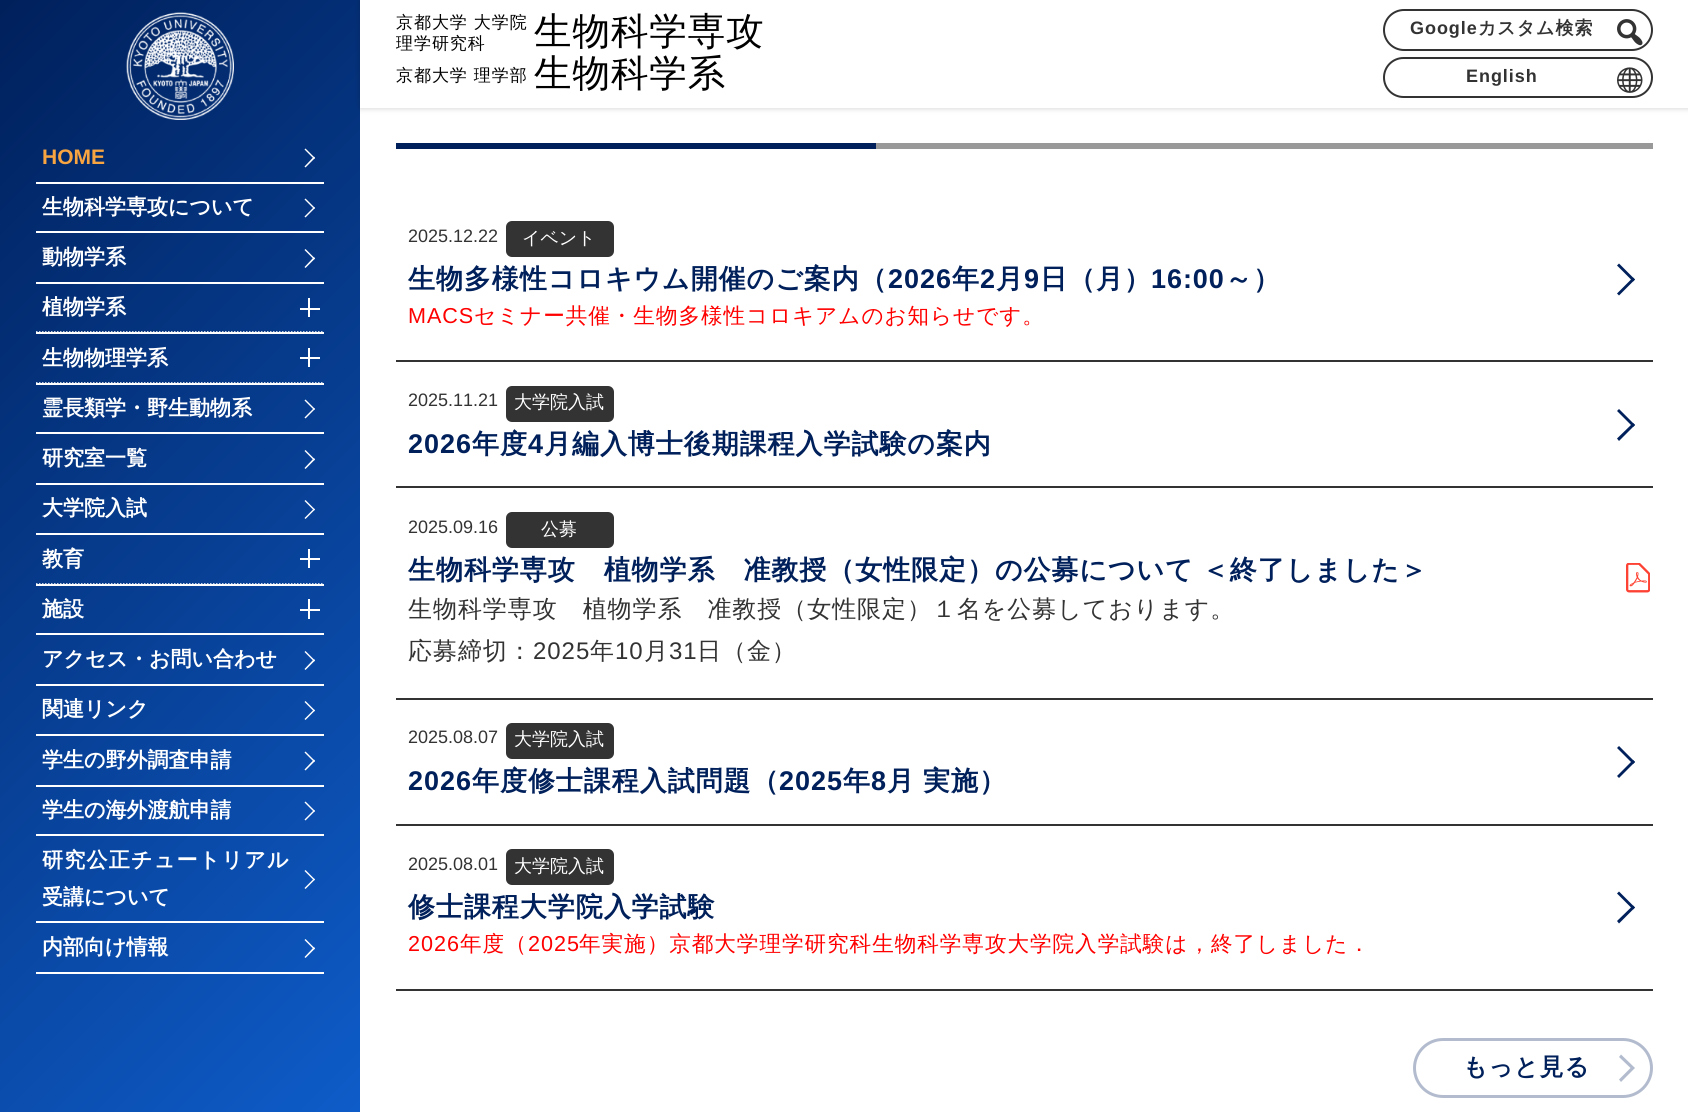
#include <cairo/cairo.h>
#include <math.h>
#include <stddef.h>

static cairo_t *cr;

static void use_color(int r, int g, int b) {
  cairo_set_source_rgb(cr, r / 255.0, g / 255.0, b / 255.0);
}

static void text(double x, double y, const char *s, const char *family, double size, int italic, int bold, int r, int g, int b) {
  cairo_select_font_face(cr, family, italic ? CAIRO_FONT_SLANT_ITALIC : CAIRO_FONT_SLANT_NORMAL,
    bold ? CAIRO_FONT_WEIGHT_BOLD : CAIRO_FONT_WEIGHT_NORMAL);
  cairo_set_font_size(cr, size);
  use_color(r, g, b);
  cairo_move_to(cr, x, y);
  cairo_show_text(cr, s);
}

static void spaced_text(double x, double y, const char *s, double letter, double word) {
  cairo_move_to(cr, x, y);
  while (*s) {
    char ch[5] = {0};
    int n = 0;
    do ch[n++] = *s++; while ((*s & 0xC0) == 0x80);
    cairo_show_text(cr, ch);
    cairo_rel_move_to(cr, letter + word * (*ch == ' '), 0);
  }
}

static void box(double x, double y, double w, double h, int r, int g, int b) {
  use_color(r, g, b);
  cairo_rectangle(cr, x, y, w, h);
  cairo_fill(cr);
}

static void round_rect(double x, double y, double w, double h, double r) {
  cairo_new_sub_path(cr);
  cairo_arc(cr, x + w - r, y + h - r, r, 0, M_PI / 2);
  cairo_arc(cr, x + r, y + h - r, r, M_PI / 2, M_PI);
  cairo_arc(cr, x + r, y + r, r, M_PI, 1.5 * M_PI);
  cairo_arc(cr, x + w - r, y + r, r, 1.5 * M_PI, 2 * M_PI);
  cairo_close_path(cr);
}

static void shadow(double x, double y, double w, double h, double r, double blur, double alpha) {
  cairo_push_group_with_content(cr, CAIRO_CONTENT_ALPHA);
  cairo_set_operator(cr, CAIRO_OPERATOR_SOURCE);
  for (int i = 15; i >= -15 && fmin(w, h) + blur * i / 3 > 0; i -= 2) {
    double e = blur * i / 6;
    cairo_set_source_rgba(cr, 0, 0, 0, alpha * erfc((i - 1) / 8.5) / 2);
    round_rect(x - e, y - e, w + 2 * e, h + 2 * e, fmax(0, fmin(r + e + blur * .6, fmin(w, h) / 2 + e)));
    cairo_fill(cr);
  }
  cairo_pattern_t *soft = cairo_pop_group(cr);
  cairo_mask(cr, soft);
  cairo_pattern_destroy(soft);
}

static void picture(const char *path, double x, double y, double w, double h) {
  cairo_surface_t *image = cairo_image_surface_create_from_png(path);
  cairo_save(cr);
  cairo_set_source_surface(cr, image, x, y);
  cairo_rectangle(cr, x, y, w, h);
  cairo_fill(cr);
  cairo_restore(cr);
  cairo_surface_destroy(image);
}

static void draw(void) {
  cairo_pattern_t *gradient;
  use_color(255, 255, 255);
  cairo_paint(cr);
  gradient = cairo_pattern_create_linear(-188, 188, 548, 925);
  cairo_pattern_add_color_stop_rgba(gradient, 0, 0, 0.125, 0.357, 1);
  cairo_pattern_add_color_stop_rgba(gradient, 1, 0.055, 0.361, 0.788, 1);
  cairo_set_source(cr, gradient);
  cairo_pattern_destroy(gradient);
  cairo_rectangle(cr, 0, 0, 360, 1112);
  cairo_fill(cr);
  picture("img_01.png", 126, 12, 108, 108);
  use_color(255, 255, 255);
  cairo_new_path(cr);
  cairo_move_to(cr, 305.5, 148.5);
  cairo_line_to(cr, 315, 158);
  cairo_line_to(cr, 314, 159);
  cairo_line_to(cr, 304.5, 149.5);
  cairo_close_path(cr);
  cairo_fill(cr);
  cairo_new_path(cr);
  cairo_move_to(cr, 314, 156.5);
  cairo_line_to(cr, 315, 158);
  cairo_line_to(cr, 305.5, 167.5);
  cairo_line_to(cr, 304.5, 166.5);
  cairo_close_path(cr);
  cairo_fill(cr);
  box(36, 182, 288, 2, 255, 255, 255);
  cairo_new_path(cr);
  cairo_move_to(cr, 305.5, 198.5);
  cairo_line_to(cr, 315, 208);
  cairo_line_to(cr, 314, 209);
  cairo_line_to(cr, 304.5, 199.5);
  cairo_close_path(cr);
  cairo_fill(cr);
  cairo_new_path(cr);
  cairo_move_to(cr, 314, 207);
  cairo_line_to(cr, 315, 208);
  cairo_line_to(cr, 305.5, 217.5);
  cairo_line_to(cr, 304.5, 216.5);
  cairo_close_path(cr);
  cairo_fill(cr);
  box(36, 231, 288, 2, 255, 255, 255);
  cairo_new_path(cr);
  cairo_move_to(cr, 305.5, 249);
  cairo_line_to(cr, 315, 258.5);
  cairo_line_to(cr, 314, 259.5);
  cairo_line_to(cr, 304.5, 250);
  cairo_close_path(cr);
  cairo_fill(cr);
  cairo_new_path(cr);
  cairo_move_to(cr, 314, 257);
  cairo_line_to(cr, 315, 258.5);
  cairo_line_to(cr, 305.5, 268);
  cairo_line_to(cr, 304.5, 267);
  cairo_close_path(cr);
  cairo_fill(cr);
  box(36, 282, 288, 2, 255, 255, 255);
  cairo_new_path(cr);
  cairo_move_to(cr, 36, 332);
  cairo_line_to(cr, 324, 332);
  cairo_set_line_width(cr, 1.5);
  cairo_set_dash(cr, (double[]){1.5, 1.5}, 2, 0);
  cairo_stroke(cr);
  box(308, 298, 2, 19, 255, 255, 255);
  box(300, 308, 20, 2, 255, 255, 255);
  box(36, 332, 288, 2, 255, 255, 255);
  cairo_new_path(cr);
  cairo_move_to(cr, 36, 383);
  cairo_line_to(cr, 324, 383);
  cairo_stroke(cr);
  box(308, 348, 2, 19, 255, 255, 255);
  box(300, 357, 20, 2, 255, 255, 255);
  box(36, 383, 288, 2, 255, 255, 255);
  cairo_new_path(cr);
  cairo_move_to(cr, 305.5, 399.5);
  cairo_line_to(cr, 315, 409);
  cairo_line_to(cr, 314, 410);
  cairo_line_to(cr, 304.5, 400.5);
  cairo_close_path(cr);
  cairo_fill(cr);
  cairo_new_path(cr);
  cairo_move_to(cr, 314, 408);
  cairo_line_to(cr, 315, 409);
  cairo_line_to(cr, 305.5, 418.5);
  cairo_line_to(cr, 304.5, 417.5);
  cairo_close_path(cr);
  cairo_fill(cr);
  box(36, 432, 288, 2, 255, 255, 255);
  cairo_new_path(cr);
  cairo_move_to(cr, 305.5, 450);
  cairo_line_to(cr, 315, 459.5);
  cairo_line_to(cr, 314, 460.5);
  cairo_line_to(cr, 304.5, 451);
  cairo_close_path(cr);
  cairo_fill(cr);
  cairo_new_path(cr);
  cairo_move_to(cr, 314, 458);
  cairo_line_to(cr, 315, 459.5);
  cairo_line_to(cr, 305.5, 469);
  cairo_line_to(cr, 304.5, 468);
  cairo_close_path(cr);
  cairo_fill(cr);
  box(36, 483, 288, 2, 255, 255, 255);
  cairo_new_path(cr);
  cairo_move_to(cr, 305.5, 500);
  cairo_line_to(cr, 315, 509.5);
  cairo_line_to(cr, 314, 510.5);
  cairo_line_to(cr, 304.5, 501);
  cairo_close_path(cr);
  cairo_fill(cr);
  cairo_new_path(cr);
  cairo_move_to(cr, 314, 508.5);
  cairo_line_to(cr, 315, 509.5);
  cairo_line_to(cr, 305.5, 519);
  cairo_line_to(cr, 304.5, 518);
  cairo_close_path(cr);
  cairo_fill(cr);
  box(36, 533, 288, 2, 255, 255, 255);
  cairo_new_path(cr);
  cairo_move_to(cr, 36, 584);
  cairo_line_to(cr, 324, 584);
  cairo_stroke(cr);
  box(308, 549, 2, 19, 255, 255, 255);
  box(300, 558, 20, 2, 255, 255, 255);
  box(36, 584, 288, 2, 255, 255, 255);
  box(308, 599, 2, 20, 255, 255, 255);
  box(300, 609, 20, 2, 255, 255, 255);
  box(36, 633, 288, 2, 255, 255, 255);
  cairo_new_path(cr);
  cairo_move_to(cr, 305.5, 651);
  cairo_line_to(cr, 315, 660.5);
  cairo_line_to(cr, 314, 661.5);
  cairo_line_to(cr, 304.5, 652);
  cairo_close_path(cr);
  cairo_fill(cr);
  cairo_new_path(cr);
  cairo_move_to(cr, 314, 659);
  cairo_line_to(cr, 315, 660.5);
  cairo_line_to(cr, 305.5, 670);
  cairo_line_to(cr, 304.5, 669);
  cairo_close_path(cr);
  cairo_fill(cr);
  box(36, 684, 288, 2, 255, 255, 255);
  cairo_new_path(cr);
  cairo_move_to(cr, 305.5, 701);
  cairo_line_to(cr, 315, 710.5);
  cairo_line_to(cr, 314, 711.5);
  cairo_line_to(cr, 304.5, 702);
  cairo_close_path(cr);
  cairo_fill(cr);
  cairo_new_path(cr);
  cairo_move_to(cr, 314, 709.5);
  cairo_line_to(cr, 315, 710.5);
  cairo_line_to(cr, 305.5, 720);
  cairo_line_to(cr, 304.5, 719);
  cairo_close_path(cr);
  cairo_fill(cr);
  box(36, 734, 288, 2, 255, 255, 255);
  cairo_new_path(cr);
  cairo_move_to(cr, 305.5, 751.5);
  cairo_line_to(cr, 315, 761);
  cairo_line_to(cr, 314, 762);
  cairo_line_to(cr, 304.5, 752.5);
  cairo_close_path(cr);
  cairo_fill(cr);
  cairo_new_path(cr);
  cairo_move_to(cr, 314, 759.5);
  cairo_line_to(cr, 315, 761);
  cairo_line_to(cr, 305.5, 770.5);
  cairo_line_to(cr, 304.5, 769.5);
  cairo_close_path(cr);
  cairo_fill(cr);
  box(36, 785, 288, 2, 255, 255, 255);
  cairo_new_path(cr);
  cairo_move_to(cr, 305.5, 801.5);
  cairo_line_to(cr, 315, 811);
  cairo_line_to(cr, 314, 812);
  cairo_line_to(cr, 304.5, 802.5);
  cairo_close_path(cr);
  cairo_fill(cr);
  cairo_new_path(cr);
  cairo_move_to(cr, 314, 810);
  cairo_line_to(cr, 315, 811);
  cairo_line_to(cr, 305.5, 820.5);
  cairo_line_to(cr, 304.5, 819.5);
  cairo_close_path(cr);
  cairo_fill(cr);
  box(36, 834, 288, 2, 255, 255, 255);
  cairo_new_path(cr);
  cairo_move_to(cr, 305.5, 870);
  cairo_line_to(cr, 315, 879.5);
  cairo_line_to(cr, 314, 880.5);
  cairo_line_to(cr, 304.5, 871);
  cairo_close_path(cr);
  cairo_fill(cr);
  cairo_new_path(cr);
  cairo_move_to(cr, 314, 878.5);
  cairo_line_to(cr, 315, 879.5);
  cairo_line_to(cr, 305.5, 889);
  cairo_line_to(cr, 304.5, 888);
  cairo_close_path(cr);
  cairo_fill(cr);
  box(36, 921, 288, 2, 255, 255, 255);
  cairo_new_path(cr);
  cairo_move_to(cr, 305.5, 939);
  cairo_line_to(cr, 315, 948.5);
  cairo_line_to(cr, 314, 949.5);
  cairo_line_to(cr, 304.5, 940);
  cairo_close_path(cr);
  cairo_fill(cr);
  cairo_new_path(cr);
  cairo_move_to(cr, 314, 947);
  cairo_line_to(cr, 315, 948.5);
  cairo_line_to(cr, 305.5, 958);
  cairo_line_to(cr, 304.5, 957);
  cairo_close_path(cr);
  cairo_fill(cr);
  box(36, 972, 288, 2, 255, 255, 255);
  use_color(0, 0, 0);
  shadow(360, 0, 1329, 108, 0, 3, 0.2);
  box(360, 0, 1328, 108, 255, 255, 255);
  round_rect(1384, 10, 268, 40, 20);
  use_color(51, 51, 51);
  cairo_set_line_width(cr, 2);
  cairo_set_dash(cr, NULL, 0, 0);
  cairo_stroke(cr);
  picture("img_02.png", 1617, 19, 26, 27);
  round_rect(1384, 58, 268, 39, 19.5);
  cairo_stroke(cr);
  picture("img_03.png", 1617, 67, 26, 26);
  box(396, 143, 480, 6, 0, 32, 91);
  box(876, 143, 777, 6, 153, 153, 153);
  box(396, 360, 1257, 2, 51, 51, 51);
  round_rect(506, 221, 108, 36, 6);
  cairo_fill(cr);
  use_color(0, 32, 91);
  cairo_new_path(cr);
  cairo_move_to(cr, 1619, 263.5);
  cairo_line_to(cr, 1635, 279.5);
  cairo_line_to(cr, 1633, 281.5);
  cairo_line_to(cr, 1617, 265.5);
  cairo_close_path(cr);
  cairo_fill(cr);
  cairo_new_path(cr);
  cairo_move_to(cr, 1633, 277.5);
  cairo_line_to(cr, 1635, 279.5);
  cairo_line_to(cr, 1619, 295.5);
  cairo_line_to(cr, 1617, 293.5);
  cairo_close_path(cr);
  cairo_fill(cr);
  box(396, 486, 1257, 2, 51, 51, 51);
  round_rect(506, 386, 108, 36, 6);
  cairo_fill(cr);
  use_color(0, 32, 91);
  cairo_new_path(cr);
  cairo_move_to(cr, 1619, 409);
  cairo_line_to(cr, 1635, 425);
  cairo_line_to(cr, 1633, 427);
  cairo_line_to(cr, 1617, 411);
  cairo_close_path(cr);
  cairo_fill(cr);
  cairo_new_path(cr);
  cairo_move_to(cr, 1633, 423);
  cairo_line_to(cr, 1635, 425);
  cairo_line_to(cr, 1619, 441);
  cairo_line_to(cr, 1617, 438.5);
  cairo_close_path(cr);
  cairo_fill(cr);
  box(396, 698, 1257, 2, 51, 51, 51);
  round_rect(506, 512, 108, 36, 6);
  cairo_fill(cr);
  picture("img_04.png", 1626, 563, 24, 30);
  box(396, 824, 1257, 2, 51, 51, 51);
  round_rect(506, 723, 108, 36, 6);
  cairo_fill(cr);
  use_color(0, 32, 91);
  cairo_new_path(cr);
  cairo_move_to(cr, 1619, 746);
  cairo_line_to(cr, 1635, 762);
  cairo_line_to(cr, 1633, 764);
  cairo_line_to(cr, 1617, 748);
  cairo_close_path(cr);
  cairo_fill(cr);
  cairo_new_path(cr);
  cairo_move_to(cr, 1633, 760);
  cairo_line_to(cr, 1635, 762);
  cairo_line_to(cr, 1619, 778);
  cairo_line_to(cr, 1617, 776);
  cairo_close_path(cr);
  cairo_fill(cr);
  box(396, 989, 1257, 2, 51, 51, 51);
  round_rect(506, 849, 108, 36, 6);
  cairo_fill(cr);
  use_color(0, 32, 91);
  cairo_new_path(cr);
  cairo_move_to(cr, 1619, 891.5);
  cairo_line_to(cr, 1635, 907.5);
  cairo_line_to(cr, 1633, 909.5);
  cairo_line_to(cr, 1617, 893.5);
  cairo_close_path(cr);
  cairo_fill(cr);
  cairo_new_path(cr);
  cairo_move_to(cr, 1633, 905.5);
  cairo_line_to(cr, 1635, 907.5);
  cairo_line_to(cr, 1619, 923.5);
  cairo_line_to(cr, 1617, 921);
  cairo_close_path(cr);
  cairo_fill(cr);
  round_rect(1414.5, 1039.5, 237, 57, 28.5);
  use_color(179, 188, 206);
  cairo_set_line_width(cr, 3);
  cairo_stroke(cr);
  cairo_new_path(cr);
  cairo_move_to(cr, 1621, 1054.5);
  cairo_line_to(cr, 1635, 1068);
  cairo_line_to(cr, 1630.5, 1068);
  cairo_line_to(cr, 1619, 1057);
  cairo_close_path(cr);
  cairo_move_to(cr, 1635, 1068);
  cairo_line_to(cr, 1621, 1082);
  cairo_line_to(cr, 1619, 1079.5);
  cairo_line_to(cr, 1630.5, 1068);
  cairo_close_path(cr);
  cairo_fill(cr);
  text(42, 164, "HOME", "Liberation Sans", 21, 0, 1, 248, 165, 65);
  text(42, 214, "生物科学専攻について", "WenQuanYi Zen Hei", 21, 0, 1, 255, 255, 255);
  text(42, 264, "動物学系", "WenQuanYi Zen Hei", 21, 0, 1, 255, 255, 255);
  text(42, 314, "植物学系", "WenQuanYi Zen Hei", 21, 0, 1, 255, 255, 255);
  text(42, 365, "生物物理学系", "WenQuanYi Zen Hei", 21, 0, 1, 255, 255, 255);
  text(42, 415, "霊長類学・野生動物系", "WenQuanYi Zen Hei", 21, 0, 1, 255, 255, 255);
  text(42, 465, "研究室一覧", "WenQuanYi Zen Hei", 21, 0, 1, 255, 255, 255);
  text(42, 515, "大学院入試", "WenQuanYi Zen Hei", 21, 0, 1, 255, 255, 255);
  text(42, 566, "教育", "WenQuanYi Zen Hei", 21, 0, 1, 255, 255, 255);
  text(42, 616, "施設", "WenQuanYi Zen Hei", 21, 0, 1, 255, 255, 255);
  text(42, 666, "アクセス・お問い合わせ", "WenQuanYi Zen Hei", 21, 0, 1, 255, 255, 255);
  text(42, 716, "関連リンク", "WenQuanYi Zen Hei", 21, 0, 1, 255, 255, 255);
  text(42, 767, "学生の野外調査申請", "WenQuanYi Zen Hei", 21, 0, 1, 255, 255, 255);
  text(42, 817, "学生の海外渡航申請", "WenQuanYi Zen Hei", 21, 0, 1, 255, 255, 255);
  spaced_text(42, 867, "研究公正チュートリアル", 1.25, 0);
  text(42, 904, "受講について", "WenQuanYi Zen Hei", 21, 0, 1, 255, 255, 255);
  text(42, 954, "内部向け情報", "WenQuanYi Zen Hei", 21, 0, 1, 255, 255, 255);
  cairo_select_font_face(cr, "WenQuanYi Zen Hei Medium", CAIRO_FONT_SLANT_NORMAL, CAIRO_FONT_WEIGHT_NORMAL);
  cairo_set_font_size(cr, 17);
  use_color(0, 0, 0);
  spaced_text(396, 28, "京都大学 大学院", 0.95, 0);
  spaced_text(396, 49, "理学研究科", 0.95, 0);
  cairo_set_font_size(cr, 37.5);
  spaced_text(534, 44, "生物科学専攻", 0.95, 0);
  cairo_set_font_size(cr, 17);
  spaced_text(396, 81, "京都大学 理学部", 0.95, 0);
  cairo_set_font_size(cr, 37.5);
  spaced_text(534, 86, "生物科学系", 0.95, 0);
  cairo_select_font_face(cr, "Liberation Sans", CAIRO_FONT_SLANT_NORMAL, CAIRO_FONT_WEIGHT_BOLD);
  cairo_set_font_size(cr, 18);
  use_color(51, 51, 51);
  spaced_text(1410, 34, "Google", 0.95, 0);
  cairo_select_font_face(cr, "WenQuanYi Zen Hei", CAIRO_FONT_SLANT_NORMAL, CAIRO_FONT_WEIGHT_BOLD);
  spaced_text(1478, 34, "カスタム検索", 0.95, 0);
  cairo_select_font_face(cr, "Liberation Sans", CAIRO_FONT_SLANT_NORMAL, CAIRO_FONT_WEIGHT_BOLD);
  spaced_text(1466, 82, "English", 0.95, 0);
  text(408, 242, "2025.12.22", "Liberation Sans", 18, 0, 0, 51, 51, 51);
  text(522, 244, "イベント", "WenQuanYi Zen Hei Medium", 18, 0, 0, 255, 255, 255);
  cairo_select_font_face(cr, "WenQuanYi Zen Hei", CAIRO_FONT_SLANT_NORMAL, CAIRO_FONT_WEIGHT_BOLD);
  cairo_set_font_size(cr, 27);
  use_color(0, 32, 91);
  spaced_text(408, 288, "生物多様性コロキウム開催のご案内（", 0.95, 0);
  cairo_select_font_face(cr, "Liberation Sans", CAIRO_FONT_SLANT_NORMAL, CAIRO_FONT_WEIGHT_BOLD);
  spaced_text(888, 288, "2026", 0.95, 0);
  cairo_select_font_face(cr, "WenQuanYi Zen Hei", CAIRO_FONT_SLANT_NORMAL, CAIRO_FONT_WEIGHT_BOLD);
  spaced_text(952, 288, "年", 0.95, 0);
  cairo_select_font_face(cr, "Liberation Sans", CAIRO_FONT_SLANT_NORMAL, CAIRO_FONT_WEIGHT_BOLD);
  spaced_text(980, 288, "2", 0.95, 0);
  cairo_select_font_face(cr, "WenQuanYi Zen Hei", CAIRO_FONT_SLANT_NORMAL, CAIRO_FONT_WEIGHT_BOLD);
  spaced_text(996, 288, "月", 0.95, 0);
  cairo_select_font_face(cr, "Liberation Sans", CAIRO_FONT_SLANT_NORMAL, CAIRO_FONT_WEIGHT_BOLD);
  spaced_text(1024, 288, "9", 0.95, 0);
  cairo_select_font_face(cr, "WenQuanYi Zen Hei", CAIRO_FONT_SLANT_NORMAL, CAIRO_FONT_WEIGHT_BOLD);
  spaced_text(1040, 288, "日（月）", 0.95, 0);
  cairo_select_font_face(cr, "Liberation Sans", CAIRO_FONT_SLANT_NORMAL, CAIRO_FONT_WEIGHT_BOLD);
  spaced_text(1151, 288, "16:00", 0.95, 0);
  cairo_select_font_face(cr, "WenQuanYi Zen Hei", CAIRO_FONT_SLANT_NORMAL, CAIRO_FONT_WEIGHT_BOLD);
  spaced_text(1225, 288, "～）", 0.95, 0);
  cairo_select_font_face(cr, "Liberation Sans", CAIRO_FONT_SLANT_NORMAL, CAIRO_FONT_WEIGHT_NORMAL);
  cairo_set_font_size(cr, 21.6);
  use_color(255, 0, 0);
  spaced_text(408, 323, "MACS", 0.95, 0);
  cairo_select_font_face(cr, "WenQuanYi Zen Hei Medium", CAIRO_FONT_SLANT_NORMAL, CAIRO_FONT_WEIGHT_NORMAL);
  spaced_text(474, 323, "セミナー共催・生物多様性コロキアムのお知らせです。", 0.95, 0);
  text(408, 406, "2025.11.21", "Liberation Sans", 18, 0, 0, 51, 51, 51);
  text(514, 408, "大学院入試", "WenQuanYi Zen Hei Medium", 18, 0, 0, 255, 255, 255);
  cairo_select_font_face(cr, "Liberation Sans", CAIRO_FONT_SLANT_NORMAL, CAIRO_FONT_WEIGHT_BOLD);
  cairo_set_font_size(cr, 27);
  use_color(0, 32, 91);
  spaced_text(408, 453, "2026", 0.95, 0);
  cairo_select_font_face(cr, "WenQuanYi Zen Hei", CAIRO_FONT_SLANT_NORMAL, CAIRO_FONT_WEIGHT_BOLD);
  spaced_text(472, 453, "年度", 0.95, 0);
  cairo_select_font_face(cr, "Liberation Sans", CAIRO_FONT_SLANT_NORMAL, CAIRO_FONT_WEIGHT_BOLD);
  spaced_text(528, 453, "4", 0.95, 0);
  cairo_select_font_face(cr, "WenQuanYi Zen Hei", CAIRO_FONT_SLANT_NORMAL, CAIRO_FONT_WEIGHT_BOLD);
  spaced_text(544, 453, "月編入博士後期課程入学試験の案内", 0.95, 0);
  text(408, 533, "2025.09.16", "Liberation Sans", 18, 0, 0, 51, 51, 51);
  text(541, 535, "公募", "WenQuanYi Zen Hei Medium", 18, 0, 0, 255, 255, 255);
  cairo_select_font_face(cr, "WenQuanYi Zen Hei", CAIRO_FONT_SLANT_NORMAL, CAIRO_FONT_WEIGHT_BOLD);
  cairo_set_font_size(cr, 27);
  use_color(0, 32, 91);
  spaced_text(408, 579, "生物科学専攻　植物学系　准教授（女性限定）の公募について ＜終了しました＞", 0.95, -1);
  cairo_select_font_face(cr, "WenQuanYi Zen Hei Medium", CAIRO_FONT_SLANT_NORMAL, CAIRO_FONT_WEIGHT_NORMAL);
  cairo_set_font_size(cr, 24);
  use_color(51, 51, 51);
  spaced_text(408, 617, "生物科学専攻　植物学系　准教授（女性限定）１名を公募しております。", 0.95, 0);
  spaced_text(408, 659, "応募締切：", 0.95, 0);
  cairo_select_font_face(cr, "Liberation Sans", CAIRO_FONT_SLANT_NORMAL, CAIRO_FONT_WEIGHT_NORMAL);
  spaced_text(533, 659, "2025", 0.95, 0);
  cairo_select_font_face(cr, "WenQuanYi Zen Hei Medium", CAIRO_FONT_SLANT_NORMAL, CAIRO_FONT_WEIGHT_NORMAL);
  spaced_text(590, 659, "年", 0.95, 0);
  cairo_select_font_face(cr, "Liberation Sans", CAIRO_FONT_SLANT_NORMAL, CAIRO_FONT_WEIGHT_NORMAL);
  spaced_text(615, 659, "10", 0.95, 0);
  cairo_select_font_face(cr, "WenQuanYi Zen Hei Medium", CAIRO_FONT_SLANT_NORMAL, CAIRO_FONT_WEIGHT_NORMAL);
  spaced_text(644, 659, "月", 0.95, 0);
  cairo_select_font_face(cr, "Liberation Sans", CAIRO_FONT_SLANT_NORMAL, CAIRO_FONT_WEIGHT_NORMAL);
  spaced_text(669, 659, "31", 0.95, 0);
  cairo_select_font_face(cr, "WenQuanYi Zen Hei Medium", CAIRO_FONT_SLANT_NORMAL, CAIRO_FONT_WEIGHT_NORMAL);
  spaced_text(697, 659, "日（金）", 0.95, 0);
  text(408, 743, "2025.08.07", "Liberation Sans", 18, 0, 0, 51, 51, 51);
  text(514, 745, "大学院入試", "WenQuanYi Zen Hei Medium", 18, 0, 0, 255, 255, 255);
  cairo_select_font_face(cr, "Liberation Sans", CAIRO_FONT_SLANT_NORMAL, CAIRO_FONT_WEIGHT_BOLD);
  cairo_set_font_size(cr, 27);
  use_color(0, 32, 91);
  spaced_text(408, 790, "2026", 0.95, 0);
  cairo_select_font_face(cr, "WenQuanYi Zen Hei", CAIRO_FONT_SLANT_NORMAL, CAIRO_FONT_WEIGHT_BOLD);
  spaced_text(472, 790, "年度修士課程入試問題（", 0.95, 0);
  cairo_select_font_face(cr, "Liberation Sans", CAIRO_FONT_SLANT_NORMAL, CAIRO_FONT_WEIGHT_BOLD);
  spaced_text(779, 790, "2025", 0.95, 0);
  cairo_select_font_face(cr, "WenQuanYi Zen Hei", CAIRO_FONT_SLANT_NORMAL, CAIRO_FONT_WEIGHT_BOLD);
  spaced_text(843, 790, "年", 0.95, 0);
  cairo_select_font_face(cr, "Liberation Sans", CAIRO_FONT_SLANT_NORMAL, CAIRO_FONT_WEIGHT_BOLD);
  spaced_text(871, 790, "8", 0.95, 0);
  cairo_select_font_face(cr, "WenQuanYi Zen Hei", CAIRO_FONT_SLANT_NORMAL, CAIRO_FONT_WEIGHT_BOLD);
  spaced_text(887, 790, "月 実施）", 0.95, -1);
  text(408, 870, "2025.08.01", "Liberation Sans", 18, 0, 0, 51, 51, 51);
  text(514, 872, "大学院入試", "WenQuanYi Zen Hei Medium", 18, 0, 0, 255, 255, 255);
  cairo_select_font_face(cr, "WenQuanYi Zen Hei", CAIRO_FONT_SLANT_NORMAL, CAIRO_FONT_WEIGHT_BOLD);
  cairo_set_font_size(cr, 27);
  use_color(0, 32, 91);
  spaced_text(408, 916, "修士課程大学院入学試験", 0.95, 0);
  cairo_select_font_face(cr, "Liberation Sans", CAIRO_FONT_SLANT_NORMAL, CAIRO_FONT_WEIGHT_NORMAL);
  cairo_set_font_size(cr, 21.6);
  use_color(255, 0, 0);
  spaced_text(408, 951, "2026", 0.95, 0);
  cairo_select_font_face(cr, "WenQuanYi Zen Hei Medium", CAIRO_FONT_SLANT_NORMAL, CAIRO_FONT_WEIGHT_NORMAL);
  spaced_text(460, 951, "年度（", 0.95, 0);
  cairo_select_font_face(cr, "Liberation Sans", CAIRO_FONT_SLANT_NORMAL, CAIRO_FONT_WEIGHT_NORMAL);
  spaced_text(528, 951, "2025", 0.95, 0);
  cairo_select_font_face(cr, "WenQuanYi Zen Hei Medium", CAIRO_FONT_SLANT_NORMAL, CAIRO_FONT_WEIGHT_NORMAL);
  spaced_text(579, 951, "年実施）京都大学理学研究科生物科学専攻大学院入学試験は，終了しました．", 0.95, 0);
  cairo_select_font_face(cr, "WenQuanYi Zen Hei", CAIRO_FONT_SLANT_NORMAL, CAIRO_FONT_WEIGHT_BOLD);
  cairo_set_font_size(cr, 24);
  use_color(0, 32, 91);
  spaced_text(1463, 1075, "もっと見る", 0.95, 0);
}

int main(void) {
  cairo_surface_t *surface = cairo_image_surface_create(CAIRO_FORMAT_RGB24, 1688, 1112);
  cr = cairo_create(surface);
  cairo_font_options_t *options = cairo_font_options_create();
  cairo_font_options_set_hint_metrics(options, CAIRO_HINT_METRICS_OFF);
  cairo_font_options_set_hint_style(options, CAIRO_HINT_STYLE_NONE);
  cairo_set_font_options(cr, options);
  cairo_set_miter_limit(cr, 4);
  draw();
  cairo_surface_write_to_png(surface, "out.png");
  cairo_font_options_destroy(options);
  cairo_destroy(cr);
  cairo_surface_destroy(surface);
  return 0;
}
